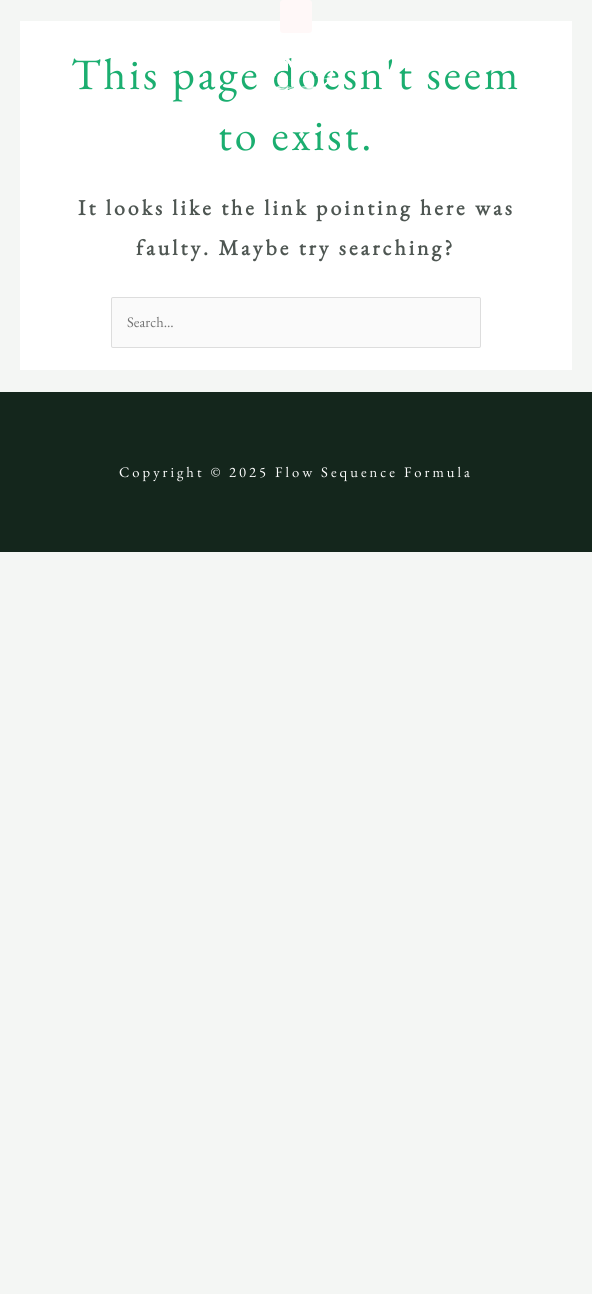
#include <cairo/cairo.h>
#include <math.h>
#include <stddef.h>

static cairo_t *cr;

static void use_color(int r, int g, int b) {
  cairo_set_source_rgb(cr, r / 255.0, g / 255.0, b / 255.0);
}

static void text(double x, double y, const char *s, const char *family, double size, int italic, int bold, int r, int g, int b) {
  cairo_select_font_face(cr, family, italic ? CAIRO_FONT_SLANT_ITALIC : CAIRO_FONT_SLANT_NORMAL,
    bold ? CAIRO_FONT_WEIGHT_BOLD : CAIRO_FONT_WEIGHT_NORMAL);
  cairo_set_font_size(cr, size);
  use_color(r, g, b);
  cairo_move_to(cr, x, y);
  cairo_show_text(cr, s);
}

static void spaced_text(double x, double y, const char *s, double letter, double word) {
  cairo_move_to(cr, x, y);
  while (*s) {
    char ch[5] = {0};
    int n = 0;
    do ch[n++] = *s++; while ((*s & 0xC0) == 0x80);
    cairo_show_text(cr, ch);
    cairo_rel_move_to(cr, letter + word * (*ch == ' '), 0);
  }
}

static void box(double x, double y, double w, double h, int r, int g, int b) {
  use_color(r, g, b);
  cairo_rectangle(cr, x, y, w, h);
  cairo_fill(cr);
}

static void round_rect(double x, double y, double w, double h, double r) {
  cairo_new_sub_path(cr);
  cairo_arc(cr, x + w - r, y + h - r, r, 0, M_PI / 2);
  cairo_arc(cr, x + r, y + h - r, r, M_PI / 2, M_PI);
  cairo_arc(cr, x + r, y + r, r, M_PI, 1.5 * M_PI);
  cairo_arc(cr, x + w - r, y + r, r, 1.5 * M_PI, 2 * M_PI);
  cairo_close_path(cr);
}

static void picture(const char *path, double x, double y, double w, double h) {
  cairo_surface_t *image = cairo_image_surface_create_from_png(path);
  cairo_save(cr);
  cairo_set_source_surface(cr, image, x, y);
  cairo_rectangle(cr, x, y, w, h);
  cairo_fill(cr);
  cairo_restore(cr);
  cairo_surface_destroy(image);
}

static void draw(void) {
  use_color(244, 246, 244);
  cairo_paint(cr);
  box(20, 21, 552, 349, 255, 255, 255);
  use_color(255, 248, 248);
  round_rect(280, 0, 32, 33, 3);
  cairo_fill(cr);
  use_color(250, 250, 250);
  round_rect(111.5, 297.5, 369, 50, 1.5);
  cairo_fill_preserve(cr);
  use_color(221, 221, 221);
  cairo_set_line_width(cr, 1);
  cairo_stroke(cr);
  box(0, 392, 592, 160, 20, 38, 28);
  cairo_select_font_face(cr, "EB Garamond", CAIRO_FONT_SLANT_NORMAL, CAIRO_FONT_WEIGHT_NORMAL);
  cairo_set_font_size(cr, 44);
  use_color(27, 174, 112);
  spaced_text(71, 89, "This page doesn't seem", 3, 0);
  picture("img_01.png", 274, 58, 59, 32);
  spaced_text(218, 150, "to exist.", 3, 0);
  cairo_select_font_face(cr, "EB Garamond", CAIRO_FONT_SLANT_NORMAL, CAIRO_FONT_WEIGHT_BOLD);
  cairo_set_font_size(cr, 21.9);
  use_color(78, 86, 82);
  spaced_text(78, 215, "It looks like the link pointing here was", 3, 0);
  spaced_text(136, 255, "faulty. Maybe try searching?", 3, 0);
  text(127, 327, "Search...", "EB Garamond", 14.6, 0, 0, 117, 117, 117);
  use_color(255, 255, 255);
  spaced_text(119, 477, "Copyright © 2025 Flow Sequence Formula", 3, 0);
}

int main(void) {
  cairo_surface_t *surface = cairo_image_surface_create(CAIRO_FORMAT_RGB24, 592, 1294);
  cr = cairo_create(surface);
  cairo_font_options_t *options = cairo_font_options_create();
  cairo_font_options_set_hint_metrics(options, CAIRO_HINT_METRICS_OFF);
  cairo_font_options_set_hint_style(options, CAIRO_HINT_STYLE_NONE);
  cairo_set_font_options(cr, options);
  cairo_set_miter_limit(cr, 4);
  draw();
  cairo_surface_write_to_png(surface, "out.png");
  cairo_font_options_destroy(options);
  cairo_destroy(cr);
  cairo_surface_destroy(surface);
  return 0;
}
